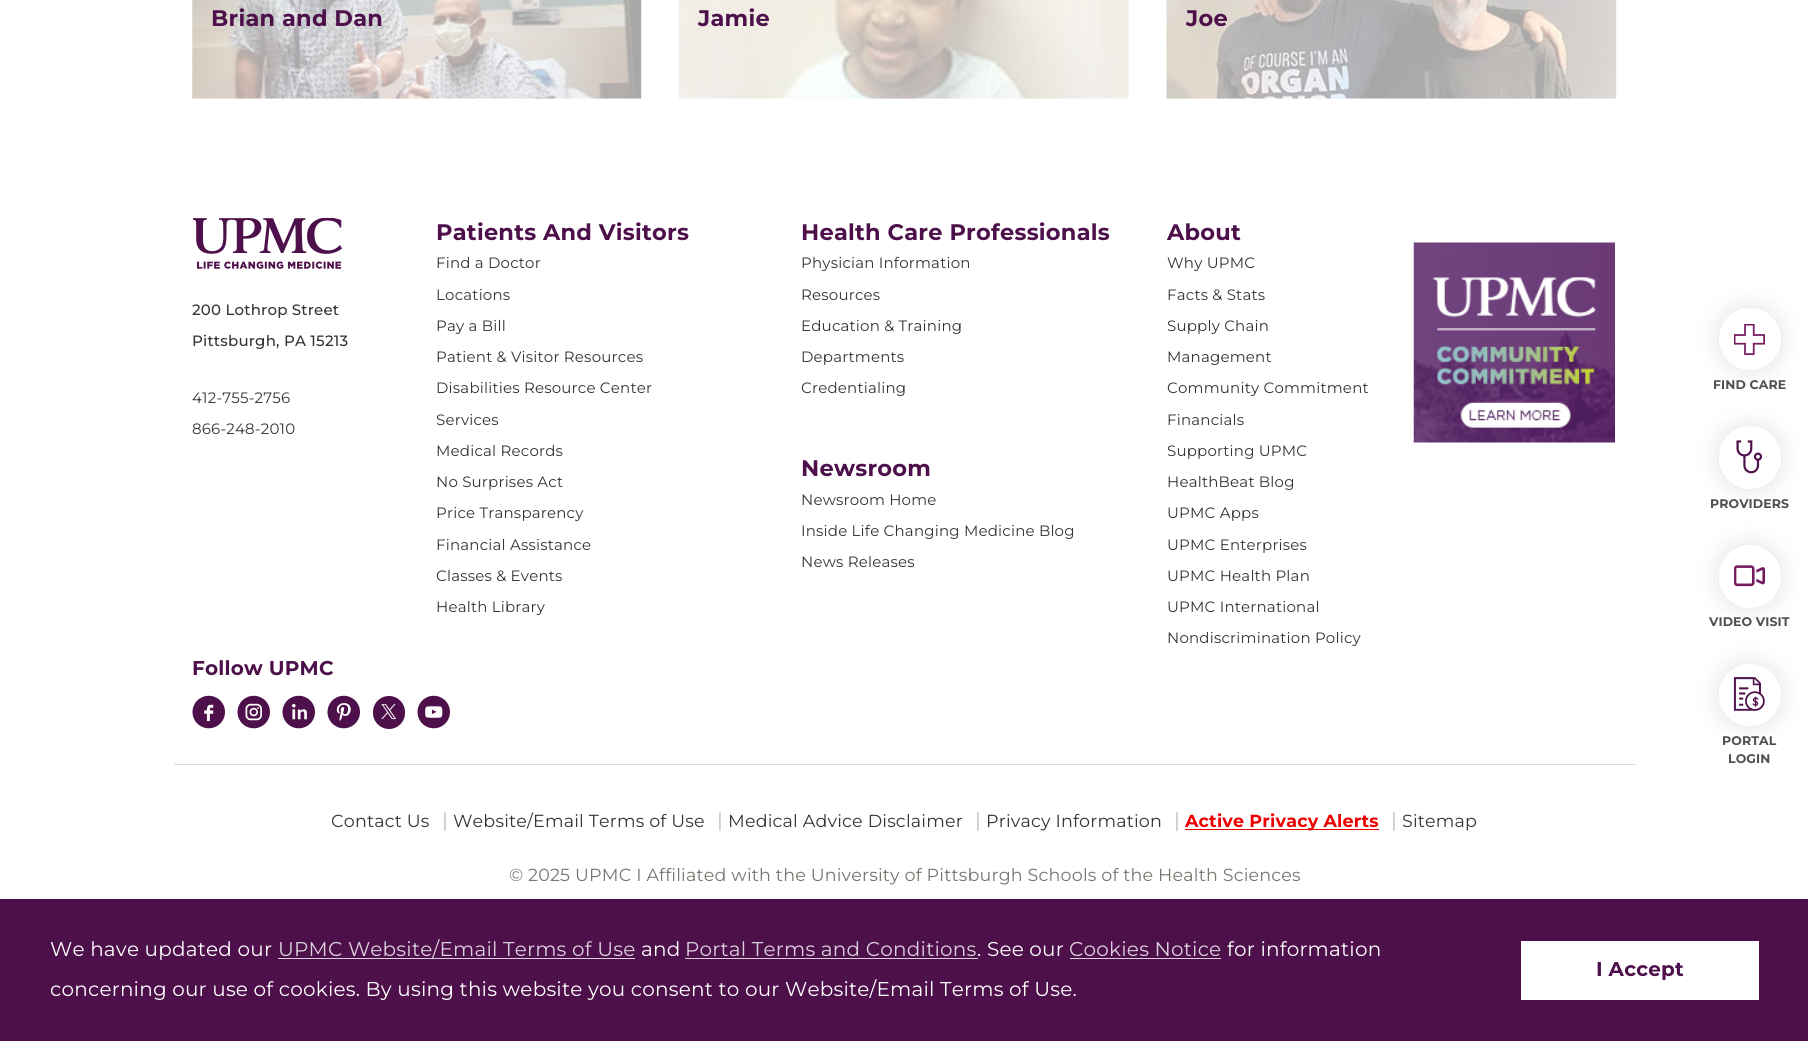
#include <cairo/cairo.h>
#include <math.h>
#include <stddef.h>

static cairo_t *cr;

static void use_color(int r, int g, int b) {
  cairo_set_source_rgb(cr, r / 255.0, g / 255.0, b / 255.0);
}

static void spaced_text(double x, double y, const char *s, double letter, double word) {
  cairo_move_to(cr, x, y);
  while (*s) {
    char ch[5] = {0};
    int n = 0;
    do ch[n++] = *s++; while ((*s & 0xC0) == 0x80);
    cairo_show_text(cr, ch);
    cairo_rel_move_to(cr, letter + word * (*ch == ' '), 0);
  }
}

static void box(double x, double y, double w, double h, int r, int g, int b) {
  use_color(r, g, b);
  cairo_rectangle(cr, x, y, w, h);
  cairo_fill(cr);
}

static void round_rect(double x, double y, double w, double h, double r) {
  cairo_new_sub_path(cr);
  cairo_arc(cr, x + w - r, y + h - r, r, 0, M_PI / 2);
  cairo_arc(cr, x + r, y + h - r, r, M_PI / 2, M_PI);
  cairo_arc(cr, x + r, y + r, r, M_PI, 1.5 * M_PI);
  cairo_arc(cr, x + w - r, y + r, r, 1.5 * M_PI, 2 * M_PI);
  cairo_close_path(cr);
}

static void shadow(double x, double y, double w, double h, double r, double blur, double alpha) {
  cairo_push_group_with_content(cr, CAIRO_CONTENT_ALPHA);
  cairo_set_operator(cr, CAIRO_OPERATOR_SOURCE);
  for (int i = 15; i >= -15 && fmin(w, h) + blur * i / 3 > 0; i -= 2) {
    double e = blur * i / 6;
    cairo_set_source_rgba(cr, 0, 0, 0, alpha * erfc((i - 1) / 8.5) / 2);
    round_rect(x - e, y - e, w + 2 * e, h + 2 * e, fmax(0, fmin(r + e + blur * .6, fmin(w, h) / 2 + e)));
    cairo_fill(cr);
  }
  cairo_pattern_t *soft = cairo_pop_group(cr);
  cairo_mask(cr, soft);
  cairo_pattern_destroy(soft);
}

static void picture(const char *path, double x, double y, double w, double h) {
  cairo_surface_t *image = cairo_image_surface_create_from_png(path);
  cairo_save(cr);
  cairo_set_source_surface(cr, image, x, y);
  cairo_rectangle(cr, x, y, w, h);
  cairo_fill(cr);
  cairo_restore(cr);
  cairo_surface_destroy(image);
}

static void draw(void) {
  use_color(255, 255, 255);
  cairo_paint(cr);
  picture("img_01.png", 192, 0, 450, 99);
  picture("img_02.png", 678, 0, 451, 99);
  picture("img_03.png", 1166, 0, 451, 99);
  picture("img_04.png", 193, 218, 149, 51);
  picture("img_05.png", 1413, 242, 202, 201);
  picture("img_06.png", 192, 695, 33, 34);
  picture("img_07.png", 237, 695, 33, 34);
  picture("img_08.png", 282, 695, 33, 34);
  picture("img_09.png", 327, 695, 33, 34);
  use_color(77, 16, 74);
  round_rect(373, 696, 32, 33, 16);
  cairo_fill(cr);
  picture("img_10.png", 381, 704, 15, 16);
  picture("img_11.png", 417, 695, 33, 34);
  box(174, 764, 1462, 1, 219, 217, 214);
  box(1185, 829, 194, 1, 238, 0, 0);
  use_color(0, 0, 0);
  shadow(1719, 308, 62, 62, 31, 12.5, 0.11);
  use_color(255, 255, 255);
  cairo_arc(cr, 1750, 339, 31, 0, 2 * M_PI);
  cairo_fill(cr);
  picture("img_12.png", 1734, 324, 31, 31);
  use_color(0, 0, 0);
  shadow(1719, 426, 62, 63, 31, 12.5, 0.11);
  use_color(255, 255, 255);
  round_rect(1719, 426, 62, 63, 31);
  cairo_fill(cr);
  picture("img_13.png", 1736, 440, 27, 34);
  use_color(0, 0, 0);
  shadow(1719, 545, 62, 63, 31, 12.5, 0.11);
  use_color(255, 255, 255);
  round_rect(1719, 545, 62, 63, 31);
  cairo_fill(cr);
  picture("img_14.png", 1734, 565, 31, 22);
  cairo_save(cr);
  cairo_set_fill_rule(cr, CAIRO_FILL_RULE_EVEN_ODD);
  cairo_new_path(cr);
  cairo_move_to(cr, 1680, 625);
  cairo_line_to(cr, 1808, 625);
  cairo_line_to(cr, 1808, 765);
  cairo_line_to(cr, 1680, 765);
  cairo_close_path(cr);
  cairo_move_to(cr, 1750, 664);
  cairo_curve_to(cr, 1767, 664, 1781, 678, 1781, 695);
  cairo_curve_to(cr, 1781, 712, 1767, 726, 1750, 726);
  cairo_curve_to(cr, 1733, 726, 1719, 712, 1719, 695);
  cairo_curve_to(cr, 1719, 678, 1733, 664, 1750, 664);
  cairo_close_path(cr);
  cairo_clip(cr);
  use_color(0, 0, 0);
  shadow(1719, 664, 62, 62, 31, 12.5, 0.11);
  cairo_restore(cr);
  picture("img_15.png", 1733, 677, 32, 34);
  box(0, 899, 1808, 142, 77, 16, 74);
  box(278, 958, 357, 1, 219, 207, 219);
  box(685, 958, 293, 1, 219, 207, 219);
  box(1070, 958, 151, 1, 219, 207, 219);
  box(1521, 941, 238, 59, 255, 255, 255);
  cairo_select_font_face(cr, "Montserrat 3 Thin", CAIRO_FONT_SLANT_NORMAL, CAIRO_FONT_WEIGHT_NORMAL);
  cairo_set_font_size(cr, 22.5);
  use_color(77, 16, 74);
  spaced_text(211, 26, "Brian and Dan", 0.25, 0);
  spaced_text(698, 26, "Jamie", 0.25, 0);
  spaced_text(1186, 26, "Joe", 0.25, 0);
  cairo_select_font_face(cr, "Montserrat Thin", CAIRO_FONT_SLANT_NORMAL, CAIRO_FONT_WEIGHT_NORMAL);
  cairo_set_font_size(cr, 15);
  use_color(54, 53, 51);
  spaced_text(192, 315, "200 Lothrop Street", 0.2, 0);
  spaced_text(192, 346, "Pittsburgh, PA 15213", 0.2, 0);
  cairo_select_font_face(cr, "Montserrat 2 Thin", CAIRO_FONT_SLANT_NORMAL, CAIRO_FONT_WEIGHT_NORMAL);
  spaced_text(192, 403, "412-755-2756", 0.18, 0);
  spaced_text(192, 434, "866-248-2010", 0.18, 0);
  cairo_select_font_face(cr, "Montserrat 3 Thin", CAIRO_FONT_SLANT_NORMAL, CAIRO_FONT_WEIGHT_NORMAL);
  cairo_set_font_size(cr, 22.5);
  use_color(77, 16, 74);
  spaced_text(436, 240, "Patients And Visitors", 0.25, 0);
  cairo_select_font_face(cr, "Montserrat 2 Thin", CAIRO_FONT_SLANT_NORMAL, CAIRO_FONT_WEIGHT_NORMAL);
  cairo_set_font_size(cr, 15);
  use_color(54, 53, 51);
  spaced_text(436, 268, "Find a Doctor", 0.2, 0);
  spaced_text(436, 300, "Locations", 0.2, 0);
  spaced_text(436, 331, "Pay a Bill", 0.2, 0);
  spaced_text(436, 362, "Patient & Visitor Resources", 0.2, 0);
  spaced_text(436, 393, "Disabilities Resource Center", 0.2, 0);
  spaced_text(436, 425, "Services", 0.2, 0);
  spaced_text(436, 456, "Medical Records", 0.2, 0);
  spaced_text(436, 487, "No Surprises Act", 0.2, 0);
  spaced_text(436, 518, "Price Transparency", 0.2, 0);
  spaced_text(436, 550, "Financial Assistance", 0.2, 0);
  spaced_text(436, 581, "Classes & Events", 0.2, 0);
  spaced_text(436, 612, "Health Library", 0.2, 0);
  cairo_select_font_face(cr, "Montserrat 3 Thin", CAIRO_FONT_SLANT_NORMAL, CAIRO_FONT_WEIGHT_NORMAL);
  cairo_set_font_size(cr, 22.5);
  use_color(77, 16, 74);
  spaced_text(801, 240, "Health Care Professionals", 0.25, 0);
  cairo_select_font_face(cr, "Montserrat 2 Thin", CAIRO_FONT_SLANT_NORMAL, CAIRO_FONT_WEIGHT_NORMAL);
  cairo_set_font_size(cr, 15);
  use_color(54, 53, 51);
  spaced_text(801, 268, "Physician Information", 0.2, 0);
  spaced_text(801, 300, "Resources", 0.2, 0);
  spaced_text(801, 331, "Education & Training", 0.2, 0);
  spaced_text(801, 362, "Departments", 0.2, 0);
  spaced_text(801, 393, "Credentialing", 0.2, 0);
  cairo_select_font_face(cr, "Montserrat 3 Thin", CAIRO_FONT_SLANT_NORMAL, CAIRO_FONT_WEIGHT_NORMAL);
  cairo_set_font_size(cr, 22.5);
  use_color(77, 16, 74);
  spaced_text(801, 476, "Newsroom", 0.25, 0);
  cairo_select_font_face(cr, "Montserrat 2 Thin", CAIRO_FONT_SLANT_NORMAL, CAIRO_FONT_WEIGHT_NORMAL);
  cairo_set_font_size(cr, 15);
  use_color(54, 53, 51);
  spaced_text(801, 505, "Newsroom Home", 0.2, 0);
  spaced_text(801, 536, "Inside Life Changing Medicine Blog", 0.2, 0);
  spaced_text(801, 567, "News Releases", 0.2, 0);
  cairo_select_font_face(cr, "Montserrat 3 Thin", CAIRO_FONT_SLANT_NORMAL, CAIRO_FONT_WEIGHT_NORMAL);
  cairo_set_font_size(cr, 22.5);
  use_color(77, 16, 74);
  spaced_text(1167, 240, "About", 0.25, 0);
  cairo_select_font_face(cr, "Montserrat 2 Thin", CAIRO_FONT_SLANT_NORMAL, CAIRO_FONT_WEIGHT_NORMAL);
  cairo_set_font_size(cr, 15);
  use_color(54, 53, 51);
  spaced_text(1167, 268, "Why UPMC", 0.2, 0);
  spaced_text(1167, 300, "Facts & Stats", 0.2, 0);
  spaced_text(1167, 331, "Supply Chain", 0.2, 0);
  spaced_text(1167, 362, "Management", 0.2, 0);
  spaced_text(1167, 393, "Community Commitment", 0.2, 0);
  spaced_text(1167, 425, "Financials", 0.2, 0);
  spaced_text(1167, 456, "Supporting UPMC", 0.2, 0);
  spaced_text(1167, 487, "HealthBeat Blog", 0.2, 0);
  spaced_text(1167, 518, "UPMC Apps", 0.2, 0);
  spaced_text(1167, 550, "UPMC Enterprises", 0.2, 0);
  spaced_text(1167, 581, "UPMC Health Plan", 0.2, 0);
  spaced_text(1167, 612, "UPMC International", 0.2, 0);
  spaced_text(1167, 643, "Nondiscrimination Policy", 0.2, 0);
  cairo_select_font_face(cr, "Montserrat 3 Thin", CAIRO_FONT_SLANT_NORMAL, CAIRO_FONT_WEIGHT_NORMAL);
  cairo_set_font_size(cr, 20);
  use_color(77, 16, 74);
  spaced_text(192, 675, "Follow UPMC", 0.2, 0);
  cairo_select_font_face(cr, "Montserrat 2 Thin", CAIRO_FONT_SLANT_NORMAL, CAIRO_FONT_WEIGHT_NORMAL);
  cairo_set_font_size(cr, 17.5);
  use_color(54, 53, 51);
  spaced_text(331, 827, "Contact Us", 0.18, 0);
  cairo_set_font_size(cr, 20);
  use_color(189, 187, 187);
  spaced_text(442, 827, "|", 0.2, 0);
  cairo_set_font_size(cr, 17.5);
  use_color(54, 53, 51);
  spaced_text(453, 827, "Website/Email Terms of Use", 0.18, 0);
  cairo_set_font_size(cr, 20);
  use_color(189, 187, 187);
  spaced_text(717, 827, "|", 0.2, 0);
  cairo_set_font_size(cr, 17.5);
  use_color(54, 53, 51);
  spaced_text(728, 827, "Medical Advice Disclaimer", 0.18, 0);
  cairo_set_font_size(cr, 20);
  use_color(189, 187, 187);
  spaced_text(975, 827, "|", 0.2, 0);
  cairo_set_font_size(cr, 17.5);
  use_color(54, 53, 51);
  spaced_text(986, 827, "Privacy Information", 0.18, 0);
  cairo_set_font_size(cr, 20);
  use_color(189, 187, 187);
  spaced_text(1174, 827, "|", 0.2, 0);
  cairo_select_font_face(cr, "Montserrat 3 Thin", CAIRO_FONT_SLANT_NORMAL, CAIRO_FONT_WEIGHT_NORMAL);
  cairo_set_font_size(cr, 17.5);
  use_color(238, 0, 0);
  spaced_text(1185, 827, "Active Privacy Alerts", 0.18, 0);
  cairo_select_font_face(cr, "Montserrat 2 Thin", CAIRO_FONT_SLANT_NORMAL, CAIRO_FONT_WEIGHT_NORMAL);
  cairo_set_font_size(cr, 20);
  use_color(189, 187, 187);
  spaced_text(1391, 827, "|", 0.2, 0);
  cairo_set_font_size(cr, 17.5);
  use_color(54, 53, 51);
  spaced_text(1402, 827, "Sitemap", 0.18, 0);
  use_color(117, 119, 111);
  spaced_text(509, 881, "© 2025 UPMC I Affiliated with the University of Pittsburgh Schools of the Health Sciences", 0.18, 0);
  cairo_select_font_face(cr, "Montserrat 3 Thin", CAIRO_FONT_SLANT_NORMAL, CAIRO_FONT_WEIGHT_NORMAL);
  cairo_set_font_size(cr, 12.5);
  use_color(80, 80, 80);
  spaced_text(1713, 389, "FIND CARE", 0.1, 0);
  spaced_text(1710, 508, "PROVIDERS", 0.1, 0);
  spaced_text(1709, 626, "VIDEO VISIT", 0.1, 0);
  spaced_text(1722, 745, "PORTAL", 0.1, 0);
  spaced_text(1728, 763, "LOGIN", 0.1, 0);
  cairo_select_font_face(cr, "Montserrat 2 Thin", CAIRO_FONT_SLANT_NORMAL, CAIRO_FONT_WEIGHT_NORMAL);
  cairo_set_font_size(cr, 20);
  use_color(255, 255, 255);
  spaced_text(50, 956, "We have updated our", 0.2, 0);
  use_color(219, 207, 219);
  spaced_text(278, 956, "UPMC Website/Email Terms of Use", 0.2, 0);
  use_color(255, 255, 255);
  spaced_text(641, 956, "and", 0.2, 0);
  use_color(219, 207, 219);
  spaced_text(685, 956, "Portal Terms and Conditions", 0.2, 0);
  use_color(255, 255, 255);
  spaced_text(977, 956, ". See our", 0.2, 0);
  use_color(219, 207, 219);
  spaced_text(1069, 956, "Cookies Notice", 0.2, 0);
  use_color(255, 255, 255);
  spaced_text(1227, 956, "for information", 0.2, 0);
  spaced_text(50, 996, "concerning our use of cookies. By using this website you consent to our Website/Email Terms of Use.", 0.2, 0);
  cairo_select_font_face(cr, "Montserrat 3 Thin", CAIRO_FONT_SLANT_NORMAL, CAIRO_FONT_WEIGHT_NORMAL);
  use_color(77, 16, 74);
  spaced_text(1596, 976, "I Accept", 0.2, 0);
}

int main(void) {
  cairo_surface_t *surface = cairo_image_surface_create(CAIRO_FORMAT_RGB24, 1808, 1041);
  cr = cairo_create(surface);
  cairo_font_options_t *options = cairo_font_options_create();
  cairo_font_options_set_hint_metrics(options, CAIRO_HINT_METRICS_OFF);
  cairo_font_options_set_hint_style(options, CAIRO_HINT_STYLE_NONE);
  cairo_set_font_options(cr, options);
  cairo_set_miter_limit(cr, 4);
  draw();
  cairo_surface_write_to_png(surface, "out.png");
  cairo_font_options_destroy(options);
  cairo_destroy(cr);
  cairo_surface_destroy(surface);
  return 0;
}
